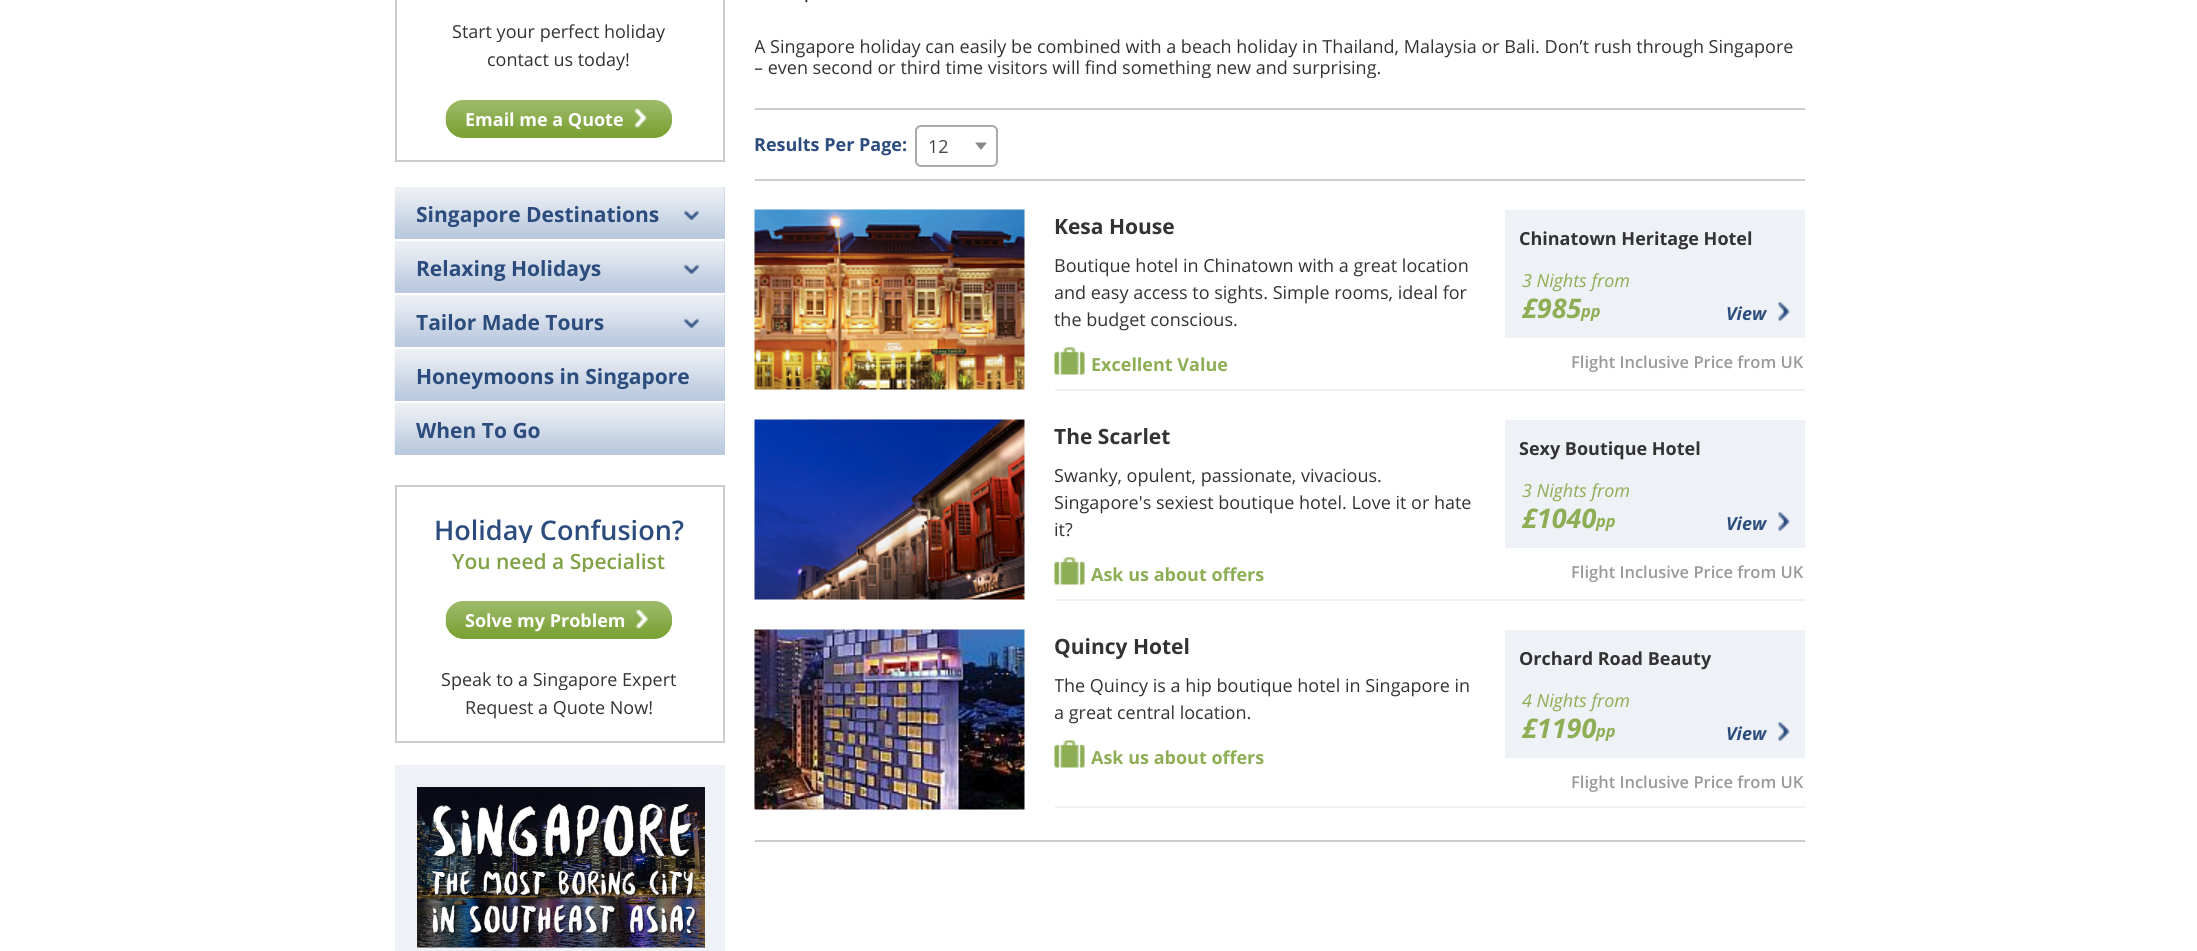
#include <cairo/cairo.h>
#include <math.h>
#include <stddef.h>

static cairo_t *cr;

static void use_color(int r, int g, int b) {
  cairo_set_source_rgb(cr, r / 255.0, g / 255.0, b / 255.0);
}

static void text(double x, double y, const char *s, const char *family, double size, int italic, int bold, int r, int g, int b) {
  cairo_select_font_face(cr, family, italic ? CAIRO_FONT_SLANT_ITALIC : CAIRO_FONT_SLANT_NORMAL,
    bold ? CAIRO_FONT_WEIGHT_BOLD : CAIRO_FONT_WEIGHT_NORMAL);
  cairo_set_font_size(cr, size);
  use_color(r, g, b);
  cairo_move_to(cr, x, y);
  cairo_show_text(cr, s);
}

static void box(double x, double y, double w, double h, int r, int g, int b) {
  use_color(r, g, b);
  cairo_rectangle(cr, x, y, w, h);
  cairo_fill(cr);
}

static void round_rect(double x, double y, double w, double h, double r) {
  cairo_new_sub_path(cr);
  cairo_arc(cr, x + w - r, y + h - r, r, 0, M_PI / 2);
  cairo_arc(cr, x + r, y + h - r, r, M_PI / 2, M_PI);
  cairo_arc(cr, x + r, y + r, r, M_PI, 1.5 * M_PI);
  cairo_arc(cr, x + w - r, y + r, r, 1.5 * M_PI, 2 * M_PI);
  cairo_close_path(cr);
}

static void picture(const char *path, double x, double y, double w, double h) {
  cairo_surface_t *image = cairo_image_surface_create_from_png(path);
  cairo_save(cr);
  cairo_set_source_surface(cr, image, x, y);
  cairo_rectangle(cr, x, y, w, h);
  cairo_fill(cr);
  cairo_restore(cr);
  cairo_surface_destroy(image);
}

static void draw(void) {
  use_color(255, 255, 255);
  cairo_paint(cr);
  cairo_rectangle(cr, 396, -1, 328, 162);
  use_color(204, 204, 204);
  cairo_stroke(cr);
  use_color(123, 162, 53);
  round_rect(446, 101, 226, 37, 18);
  cairo_fill(cr);
  picture("img_01.png", 445, 100, 227, 38);
  picture("img_02.png", 634, 108, 13, 20);
  box(395, 187, 330, 52, 187, 202, 223);
  picture("img_03.png", 394, 185, 331, 53);
  box(395, 185, 330, 2, 255, 255, 255);
  picture("img_04.png", 684, 210, 15, 10);
  box(395, 241, 330, 52, 187, 202, 223);
  picture("img_03.png", 394, 239, 331, 53);
  box(395, 239, 330, 2, 255, 255, 255);
  picture("img_04.png", 684, 264, 15, 10);
  box(395, 295, 330, 52, 187, 202, 223);
  picture("img_03.png", 394, 293, 331, 53);
  box(395, 293, 330, 2, 255, 255, 255);
  picture("img_04.png", 684, 318, 15, 10);
  box(395, 349, 330, 52, 187, 202, 223);
  picture("img_03.png", 394, 347, 331, 53);
  box(395, 347, 330, 2, 255, 255, 255);
  box(395, 403, 330, 52, 187, 202, 223);
  picture("img_03.png", 394, 401, 331, 53);
  box(395, 401, 330, 2, 255, 255, 255);
  cairo_rectangle(cr, 396, 486, 328, 256);
  use_color(204, 204, 204);
  cairo_stroke(cr);
  use_color(123, 162, 53);
  round_rect(446, 602, 226, 37, 18);
  cairo_fill(cr);
  picture("img_01.png", 445, 601, 227, 38);
  picture("img_05.png", 635, 609, 13, 20);
  box(395, 765, 330, 186, 238, 241, 245);
  picture("img_06.png", 417, 787, 288, 161);
  box(755, 108, 1050, 2, 204, 204, 204);
  box(755, 179, 1050, 2, 204, 204, 204);
  round_rect(916, 126, 81, 40, 5);
  use_color(170, 170, 170);
  cairo_stroke(cr);
  use_color(136, 136, 136);
  cairo_new_path(cr);
  cairo_move_to(cr, 975, 142.5);
  cairo_line_to(cr, 987, 142.5);
  cairo_line_to(cr, 981, 150);
  cairo_close_path(cr);
  cairo_fill(cr);
  picture("img_07.png", 754, 209, 271, 181);
  box(1055, 389, 750, 2, 238, 241, 245);
  picture("img_08.png", 1054, 347, 31, 28);
  box(1505, 210, 300, 128, 238, 241, 245);
  picture("img_09.png", 1777, 302, 13, 19);
  picture("img_10.png", 754, 419, 271, 181);
  box(1055, 599, 750, 2, 238, 241, 245);
  picture("img_08.png", 1054, 557, 31, 28);
  box(1505, 420, 300, 128, 238, 241, 245);
  picture("img_09.png", 1777, 512, 13, 19);
  picture("img_11.png", 754, 629, 271, 181);
  box(1055, 806, 750, 2, 238, 241, 245);
  picture("img_08.png", 1054, 740, 31, 28);
  box(1505, 630, 300, 128, 238, 241, 245);
  picture("img_09.png", 1777, 722, 13, 19);
  box(755, 840, 1050, 2, 204, 204, 204);
  cairo_save(cr);
  cairo_rectangle(cr, 396, 21, 327, 21);
  cairo_clip(cr);
  text(452, 38, "Start your perfect holiday", "Open Sans", 18, 0, 0, 51, 51, 51);
  cairo_restore(cr);
  text(487, 66, "contact us today!", "Open Sans", 18, 0, 0, 51, 51, 51);
  text(465, 126, "Email me a Quote", "Open Sans", 18, 0, 1, 255, 255, 255);
  text(416, 222, "Singapore Destinations", "Open Sans", 21, 0, 1, 43, 76, 125);
  text(416, 276, "Relaxing Holidays", "Open Sans", 21, 0, 1, 43, 76, 125);
  text(416, 330, "Tailor Made Tours", "Open Sans", 21, 0, 1, 43, 76, 125);
  text(416, 384, "Honeymoons in Singapore", "Open Sans", 21, 0, 1, 43, 76, 125);
  text(416, 438, "When To Go", "Open Sans", 21, 0, 1, 43, 76, 125);
  cairo_save(cr);
  cairo_rectangle(cr, 396, 516, 327, 27);
  cairo_clip(cr);
  text(434, 540, "Holiday Confusion?", "Open Sans SemiBold", 27, 0, 0, 43, 76, 125);
  cairo_restore(cr);
  cairo_save(cr);
  cairo_rectangle(cr, 396, 551, 327, 21);
  cairo_clip(cr);
  text(452, 569, "You need a Specialist", "Open Sans SemiBold", 21, 0, 0, 128, 162, 69);
  cairo_restore(cr);
  text(465, 627, "Solve my Problem", "Open Sans", 18, 0, 1, 255, 255, 255);
  cairo_save(cr);
  cairo_rectangle(cr, 396, 669, 327, 21);
  cairo_clip(cr);
  text(441, 686, "Speak to a Singapore Expert", "Open Sans", 18, 0, 0, 51, 51, 51);
  cairo_restore(cr);
  text(465, 714, "Request a Quote Now!", "Open Sans", 18, 0, 0, 51, 51, 51);
  text(804, 2, ".", "Open Sans", 18, 0, 0, 51, 51, 51);
  cairo_save(cr);
  cairo_rectangle(cr, 755, 36, 1050, 42);
  cairo_clip(cr);
  text(754, 53, "A Singapore holiday can easily be combined with a beach holiday in Thailand, Malaysia or Bali. Don’t rush through Singapore", "Open Sans", 18, 0, 0, 51, 51, 51);
  text(754, 74, "– even second or third time visitors will find something new and surprising.", "Open Sans", 18, 0, 0, 51, 51, 51);
  cairo_restore(cr);
  text(754, 151, "Results Per Page:", "Open Sans", 18, 0, 1, 43, 76, 125);
  text(928, 153, "12", "Open Sans", 18, 0, 0, 68, 68, 68);
  text(1054, 234, "Kesa House", "Open Sans", 21, 0, 1, 51, 51, 51);
  text(1054, 272, "Boutique hotel in Chinatown with a great location", "Open Sans", 18, 0, 0, 51, 51, 51);
  cairo_save(cr);
  cairo_rectangle(cr, 1055, 252, 420, 81);
  cairo_clip(cr);
  text(1054, 299, "and easy access to sights. Simple rooms, ideal for", "Open Sans", 18, 0, 0, 51, 51, 51);
  cairo_restore(cr);
  text(1054, 326, "the budget conscious.", "Open Sans", 18, 0, 0, 51, 51, 51);
  text(1091, 371, "Excellent Value", "Open Sans", 18, 0, 1, 142, 174, 85);
  text(1519, 245, "Chinatown Heritage Hotel", "Open Sans", 18, 0, 1, 51, 51, 51);
  text(1522, 287, "3 Nights from", "Open Sans", 18, 1, 0, 142, 174, 85);
  text(1522, 318, "£985", "Open Sans", 27, 1, 1, 142, 174, 85);
  text(1581, 317, "pp", "Open Sans", 16.5, 1, 1, 142, 174, 85);
  text(1726, 320, "View", "Open Sans", 18, 1, 1, 43, 76, 125);
  text(1571, 368, "Flight Inclusive Price from UK", "Open Sans SemiBold", 16.5, 0, 0, 153, 153, 153);
  text(1054, 444, "The Scarlet", "Open Sans", 21, 0, 1, 51, 51, 51);
  cairo_save(cr);
  cairo_rectangle(cr, 1055, 462, 420, 81);
  cairo_clip(cr);
  text(1054, 482, "Swanky, opulent, passionate, vivacious.", "Open Sans", 18, 0, 0, 51, 51, 51);
  text(1054, 509, "Singapore's sexiest boutique hotel. Love it or hate", "Open Sans", 18, 0, 0, 51, 51, 51);
  cairo_restore(cr);
  text(1054, 536, "it?", "Open Sans", 18, 0, 0, 51, 51, 51);
  text(1091, 581, "Ask us about offers", "Open Sans", 18, 0, 1, 142, 174, 85);
  text(1519, 455, "Sexy Boutique Hotel", "Open Sans", 18, 0, 1, 51, 51, 51);
  text(1522, 497, "3 Nights from", "Open Sans", 18, 1, 0, 142, 174, 85);
  text(1522, 528, "£1040", "Open Sans", 27, 1, 1, 142, 174, 85);
  text(1596, 527, "pp", "Open Sans", 16.5, 1, 1, 142, 174, 85);
  text(1726, 530, "View", "Open Sans", 18, 1, 1, 43, 76, 125);
  text(1571, 578, "Flight Inclusive Price from UK", "Open Sans SemiBold", 16.5, 0, 0, 153, 153, 153);
  text(1054, 654, "Quincy Hotel", "Open Sans", 21, 0, 1, 51, 51, 51);
  cairo_save(cr);
  cairo_rectangle(cr, 1055, 672, 420, 54);
  cairo_clip(cr);
  text(1054, 692, "The Quincy is a hip boutique hotel in Singapore in", "Open Sans", 18, 0, 0, 51, 51, 51);
  text(1054, 719, "a great central location.", "Open Sans", 18, 0, 0, 51, 51, 51);
  cairo_restore(cr);
  text(1091, 764, "Ask us about offers", "Open Sans", 18, 0, 1, 142, 174, 85);
  text(1519, 665, "Orchard Road Beauty", "Open Sans", 18, 0, 1, 51, 51, 51);
  text(1522, 707, "4 Nights from", "Open Sans", 18, 1, 0, 142, 174, 85);
  text(1522, 738, "£1190", "Open Sans", 27, 1, 1, 142, 174, 85);
  text(1596, 737, "pp", "Open Sans", 16.5, 1, 1, 142, 174, 85);
  text(1726, 740, "View", "Open Sans", 18, 1, 1, 43, 76, 125);
  text(1571, 788, "Flight Inclusive Price from UK", "Open Sans SemiBold", 16.5, 0, 0, 153, 153, 153);
}

int main(void) {
  cairo_surface_t *surface = cairo_image_surface_create(CAIRO_FORMAT_RGB24, 2197, 951);
  cr = cairo_create(surface);
  cairo_font_options_t *options = cairo_font_options_create();
  cairo_font_options_set_hint_metrics(options, CAIRO_HINT_METRICS_OFF);
  cairo_font_options_set_hint_style(options, CAIRO_HINT_STYLE_NONE);
  cairo_set_font_options(cr, options);
  cairo_set_miter_limit(cr, 4);
  draw();
  cairo_surface_write_to_png(surface, "out.png");
  cairo_font_options_destroy(options);
  cairo_destroy(cr);
  cairo_surface_destroy(surface);
  return 0;
}
